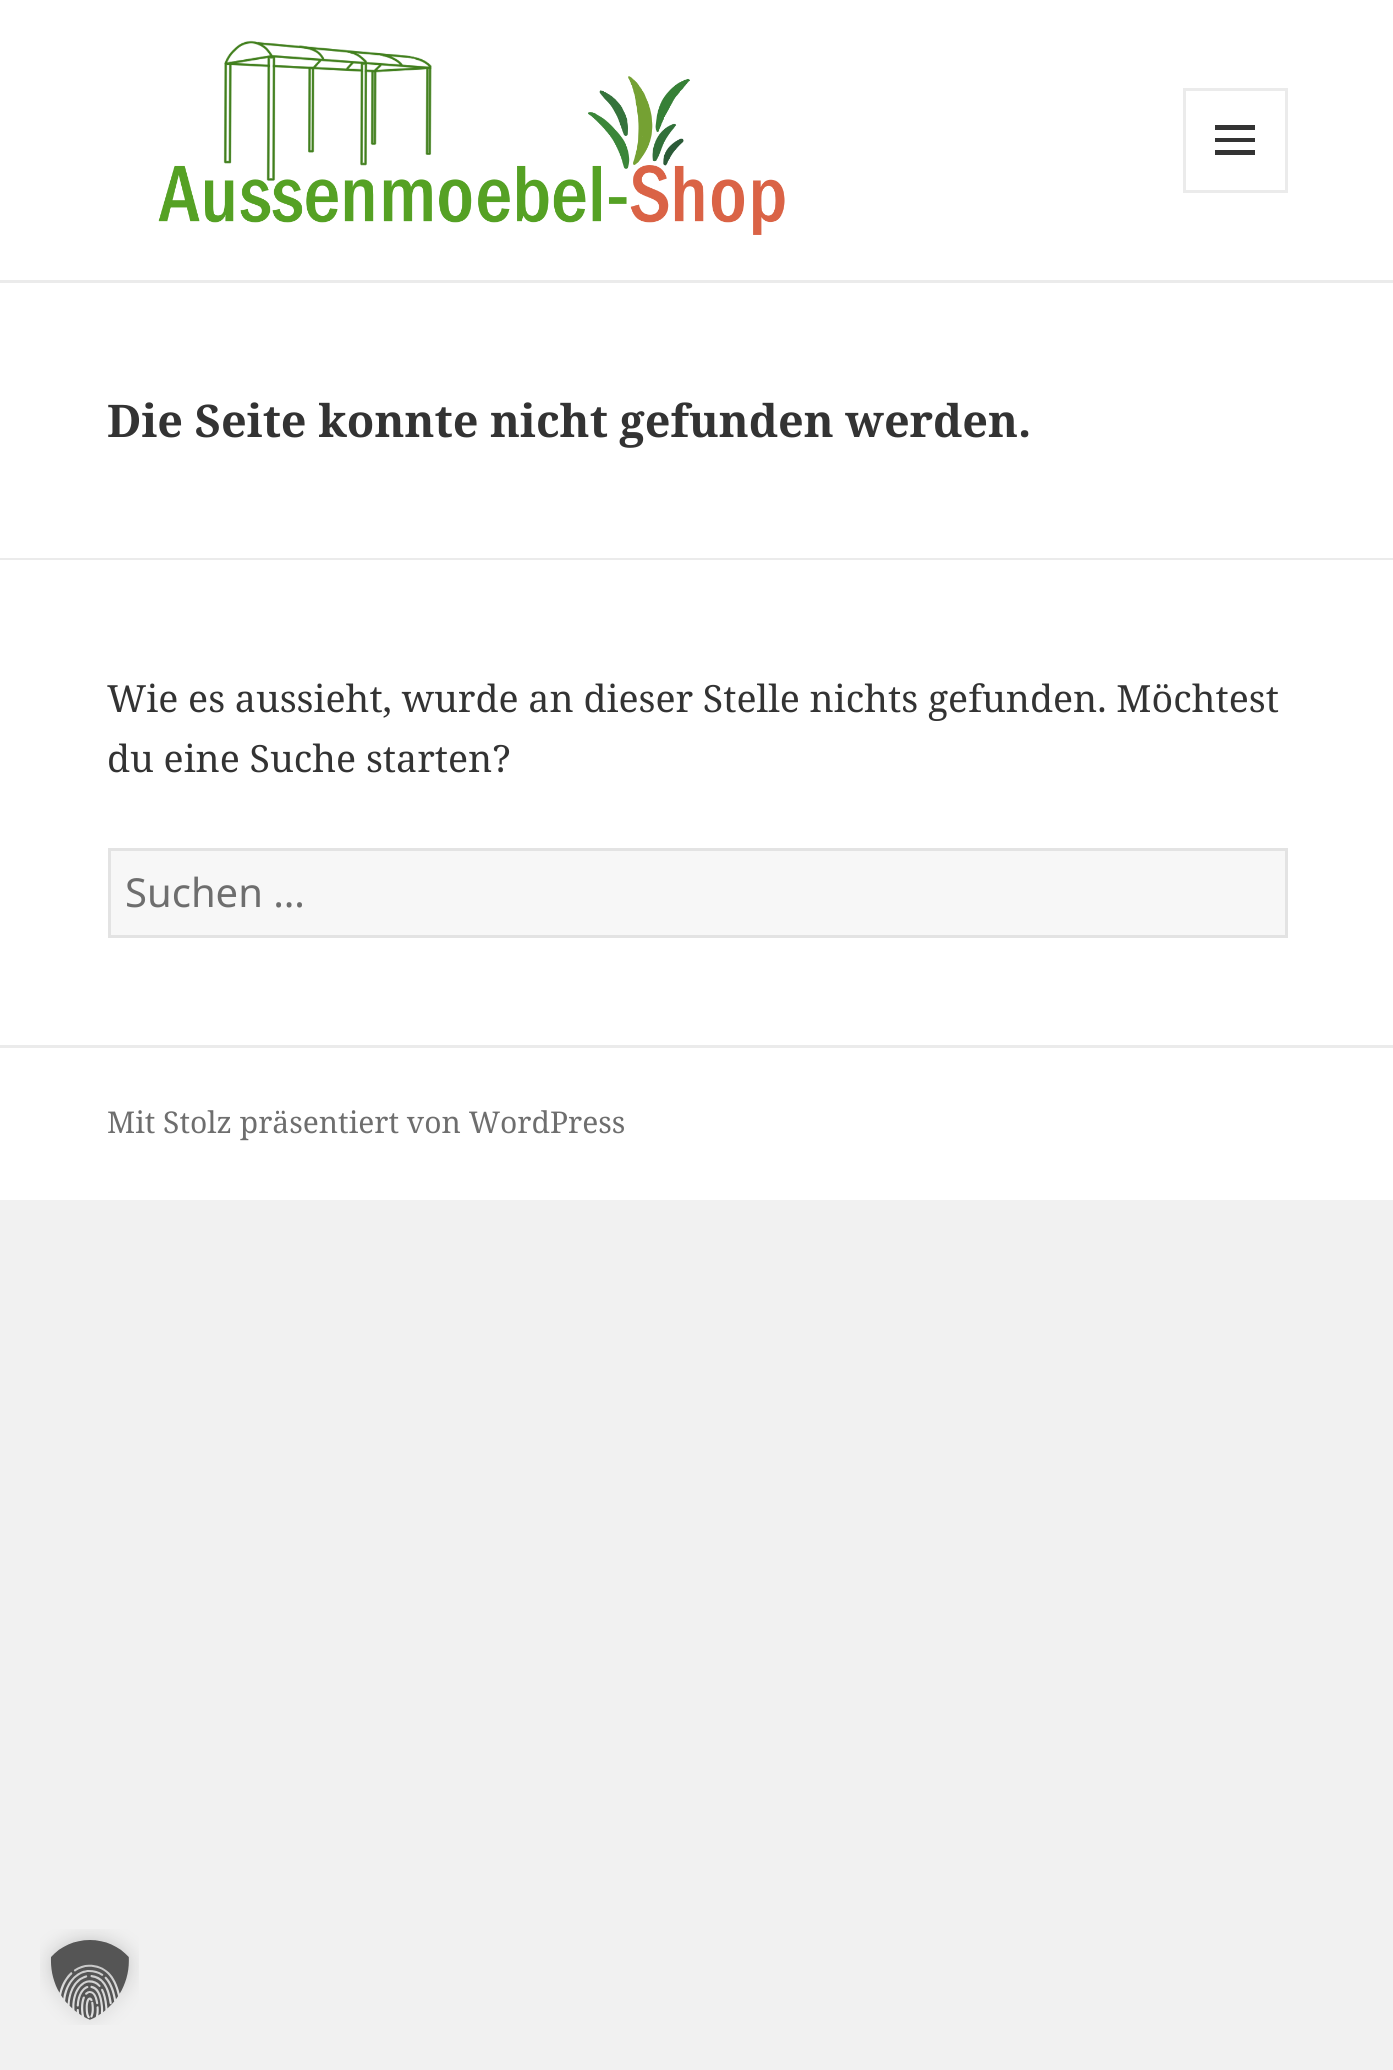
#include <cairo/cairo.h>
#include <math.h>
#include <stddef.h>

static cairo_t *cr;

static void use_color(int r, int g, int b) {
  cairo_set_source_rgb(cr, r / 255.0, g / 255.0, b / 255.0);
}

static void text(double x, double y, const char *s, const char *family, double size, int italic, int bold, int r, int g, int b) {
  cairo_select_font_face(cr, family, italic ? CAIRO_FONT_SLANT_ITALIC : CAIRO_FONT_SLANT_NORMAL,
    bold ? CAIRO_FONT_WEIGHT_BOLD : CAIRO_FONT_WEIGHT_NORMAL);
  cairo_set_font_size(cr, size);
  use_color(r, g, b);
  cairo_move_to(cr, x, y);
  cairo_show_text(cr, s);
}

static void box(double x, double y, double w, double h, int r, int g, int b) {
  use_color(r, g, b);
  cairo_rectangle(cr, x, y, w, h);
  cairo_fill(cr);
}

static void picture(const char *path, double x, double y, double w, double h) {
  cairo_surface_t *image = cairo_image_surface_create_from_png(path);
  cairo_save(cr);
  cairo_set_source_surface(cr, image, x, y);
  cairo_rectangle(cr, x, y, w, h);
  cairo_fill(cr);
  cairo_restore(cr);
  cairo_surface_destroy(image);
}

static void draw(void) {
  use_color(241, 241, 241);
  cairo_paint(cr);
  box(0, 0, 1393, 280, 255, 255, 255);
  box(0, 280, 1393, 3, 235, 235, 235);
  picture("img_01.png", 158, 40, 627, 195);
  cairo_rectangle(cr, 1184.5, 89.5, 102, 102);
  cairo_set_line_width(cr, 3);
  cairo_stroke(cr);
  use_color(51, 51, 51);
  cairo_new_path(cr);
  cairo_move_to(cr, 1215, 155);
  cairo_line_to(cr, 1215, 150);
  cairo_line_to(cr, 1255, 150);
  cairo_line_to(cr, 1255, 155);
  cairo_close_path(cr);
  cairo_move_to(cr, 1215, 125);
  cairo_line_to(cr, 1255, 125);
  cairo_line_to(cr, 1255, 130);
  cairo_line_to(cr, 1215, 130);
  cairo_close_path(cr);
  cairo_move_to(cr, 1215, 142);
  cairo_line_to(cr, 1215, 138);
  cairo_line_to(cr, 1255, 138);
  cairo_line_to(cr, 1255, 142);
  cairo_close_path(cr);
  cairo_fill(cr);
  box(0, 283, 1393, 275, 255, 255, 255);
  box(0, 558, 1393, 2, 235, 235, 235);
  box(0, 560, 1393, 485, 255, 255, 255);
  use_color(247, 247, 247);
  cairo_rectangle(cr, 109.5, 849.5, 1177, 87);
  cairo_fill_preserve(cr);
  use_color(227, 227, 227);
  cairo_stroke(cr);
  box(0, 1048, 1393, 152, 255, 255, 255);
  box(0, 1045, 1393, 3, 235, 235, 235);
  picture("img_02.png", 40, 1929, 99, 96);
  text(107, 437, "Die Seite konnte nicht gefunden werden.", "Noto Serif", 45, 0, 1, 51, 51, 51);
  text(107, 712, "Wie es aussieht, wurde an dieser Stelle nichts gefunden. Möchtest", "Noto Serif", 37.5, 0, 0, 51, 51, 51);
  text(107, 772, "du eine Suche starten?", "Noto Serif", 37.5, 0, 0, 51, 51, 51);
  text(125, 907, "Suchen …", "Noto Sans", 40, 0, 0, 110, 110, 110);
  text(107, 1133, "Mit Stolz präsentiert von WordPress", "Noto Serif", 30, 0, 0, 110, 110, 110);
}

int main(void) {
  cairo_surface_t *surface = cairo_image_surface_create(CAIRO_FORMAT_RGB24, 1393, 2070);
  cr = cairo_create(surface);
  cairo_font_options_t *options = cairo_font_options_create();
  cairo_font_options_set_hint_metrics(options, CAIRO_HINT_METRICS_OFF);
  cairo_font_options_set_hint_style(options, CAIRO_HINT_STYLE_NONE);
  cairo_set_font_options(cr, options);
  cairo_set_miter_limit(cr, 4);
  draw();
  cairo_surface_write_to_png(surface, "out.png");
  cairo_font_options_destroy(options);
  cairo_destroy(cr);
  cairo_surface_destroy(surface);
  return 0;
}
